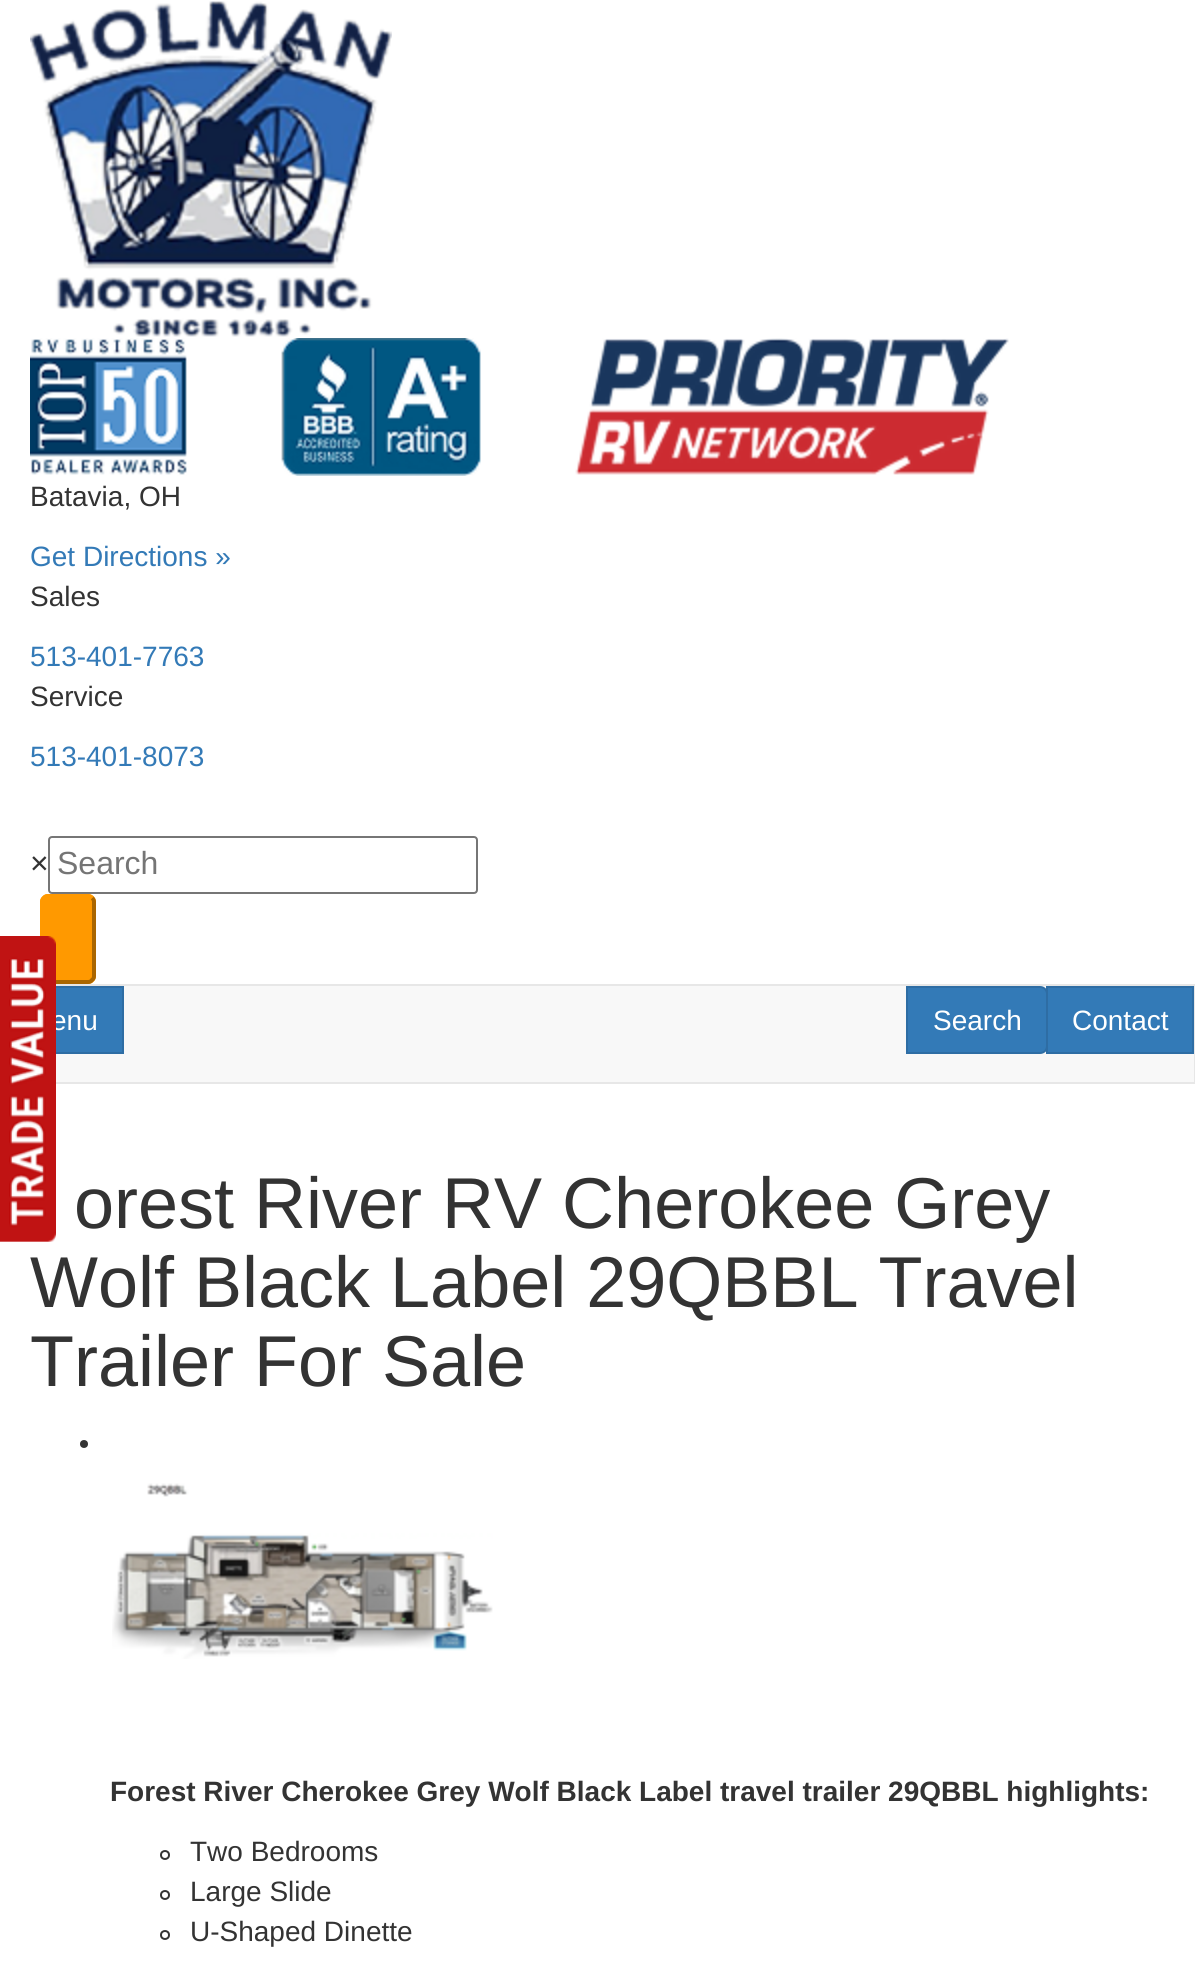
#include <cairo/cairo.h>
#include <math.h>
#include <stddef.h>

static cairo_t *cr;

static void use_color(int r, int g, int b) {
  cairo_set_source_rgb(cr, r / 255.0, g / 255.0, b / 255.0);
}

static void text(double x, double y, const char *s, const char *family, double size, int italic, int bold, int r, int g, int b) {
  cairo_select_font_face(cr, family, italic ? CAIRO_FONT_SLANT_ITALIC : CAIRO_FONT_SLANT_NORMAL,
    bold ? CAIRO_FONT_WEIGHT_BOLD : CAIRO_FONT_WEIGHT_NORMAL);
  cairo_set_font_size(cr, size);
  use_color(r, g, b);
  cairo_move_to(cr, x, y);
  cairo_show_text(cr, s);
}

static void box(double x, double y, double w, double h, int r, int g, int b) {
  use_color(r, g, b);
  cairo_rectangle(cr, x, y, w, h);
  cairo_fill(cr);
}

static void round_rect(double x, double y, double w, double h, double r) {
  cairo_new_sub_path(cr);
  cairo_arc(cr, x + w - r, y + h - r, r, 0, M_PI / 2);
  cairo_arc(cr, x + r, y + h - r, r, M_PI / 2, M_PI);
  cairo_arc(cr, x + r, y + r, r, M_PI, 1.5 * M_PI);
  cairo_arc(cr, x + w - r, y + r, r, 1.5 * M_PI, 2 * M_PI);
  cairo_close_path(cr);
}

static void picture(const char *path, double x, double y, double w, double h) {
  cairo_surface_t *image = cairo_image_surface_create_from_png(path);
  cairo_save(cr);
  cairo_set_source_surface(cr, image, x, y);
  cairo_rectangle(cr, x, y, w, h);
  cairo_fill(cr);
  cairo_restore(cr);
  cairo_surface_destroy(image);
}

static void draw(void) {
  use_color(255, 255, 255);
  cairo_paint(cr);
  picture("img_01.png", 30, 1, 362, 336);
  picture("img_02.png", 30, 338, 979, 138);
  round_rect(49, 837, 428, 56, 3);
  use_color(118, 118, 118);
  cairo_stroke(cr);
  use_color(255, 153, 0);
  round_rect(40, 894, 56, 90, 8);
  cairo_fill(cr);
  cairo_new_path(cr);
  cairo_move_to(cr, 92, 898);
  cairo_curve_to(cr, 93.5, 899, 94, 900.5, 94, 902);
  cairo_line_to(cr, 94, 976);
  cairo_curve_to(cr, 94, 977.5, 93.5, 979, 92, 980);
  cairo_curve_to(cr, 91, 981.5, 89.5, 982, 88, 982);
  cairo_line_to(cr, 48, 982);
  cairo_curve_to(cr, 46.5, 982, 45, 981.5, 44, 980);
  use_color(170, 102, 0);
  cairo_set_line_width(cr, 4);
  cairo_stroke(cr);
  cairo_new_path(cr);
  cairo_move_to(cr, 44, 980);
  cairo_curve_to(cr, 42.5, 979, 42, 977.5, 42, 976);
  cairo_line_to(cr, 42, 902);
  cairo_curve_to(cr, 42, 900.5, 42.5, 899, 44, 898);
  cairo_curve_to(cr, 45, 896.5, 46.5, 896, 48, 896);
  cairo_line_to(cr, 88, 896);
  cairo_curve_to(cr, 89.5, 896, 91, 896.5, 92, 898);
  use_color(255, 153, 0);
  cairo_stroke(cr);
  box(56, 986, 1138, 96, 248, 248, 248);
  cairo_rectangle(cr, 1, 985, 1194, 98);
  use_color(231, 231, 231);
  cairo_set_line_width(cr, 2);
  cairo_stroke(cr);
  box(56, 988, 66, 64, 51, 122, 183);
  cairo_rectangle(cr, 3, 987, 120, 66);
  use_color(46, 109, 164);
  cairo_stroke(cr);
  use_color(51, 122, 183);
  cairo_rectangle(cr, 1047, 987, 146, 66);
  cairo_fill_preserve(cr);
  use_color(46, 109, 164);
  cairo_stroke(cr);
  use_color(51, 122, 183);
  cairo_new_path(cr);
  cairo_move_to(cr, 907, 987);
  cairo_line_to(cr, 1040, 987);
  cairo_curve_to(cr, 1044, 987, 1047, 990, 1047, 994);
  cairo_line_to(cr, 1047, 1046);
  cairo_curve_to(cr, 1047, 1050, 1044, 1053, 1040, 1053);
  cairo_line_to(cr, 907, 1053);
  cairo_close_path(cr);
  cairo_fill_preserve(cr);
  use_color(46, 109, 164);
  cairo_stroke(cr);
  use_color(51, 51, 51);
  cairo_arc(cr, 84, 1444, 4, 0, 2 * M_PI);
  cairo_fill(cr);
  picture("img_04.png", 112, 1483, 381, 176);
  cairo_arc(cr, 165, 1855, 4, 0, 2 * M_PI);
  cairo_stroke(cr);
  cairo_arc(cr, 165, 1895, 4, 0, 2 * M_PI);
  cairo_stroke(cr);
  cairo_arc(cr, 165, 1935, 4, 0, 2 * M_PI);
  cairo_stroke(cr);
  text(30, 506, "Batavia, OH", "Liberation Sans", 28, 0, 0, 51, 51, 51);
  text(30, 566, "Get Directions »", "Liberation Sans", 28, 0, 0, 51, 122, 183);
  text(30, 606, "Sales", "Liberation Sans", 28, 0, 0, 51, 51, 51);
  text(30, 666, "513-401-7763", "Liberation Sans", 28, 0, 0, 51, 122, 183);
  text(30, 706, "Service", "Liberation Sans", 28, 0, 0, 51, 51, 51);
  text(30, 766, "513-401-8073", "Liberation Sans", 28, 0, 0, 51, 122, 183);
  text(30, 874, "×", "Liberation Sans", 32, 0, 0, 51, 51, 51);
  text(57, 874, "Search", "Liberation Sans", 32, 0, 0, 117, 117, 117);
  text(51, 1030, "enu", "Liberation Sans", 28, 0, 0, 255, 255, 255);
  picture("img_03.png", 0, 936, 56, 306);
  text(933, 1030, "Search", "Liberation Sans", 28, 0, 0, 255, 255, 255);
  text(1072, 1030, "Contact", "Liberation Sans", 28, 0, 0, 255, 255, 255);
  text(74, 1228, "orest River RV Cherokee Grey", "Liberation Sans", 72, 0, 0, 51, 51, 51);
  text(30, 1307, "Wolf Black Label 29QBBL Travel", "Liberation Sans", 72, 0, 0, 51, 51, 51);
  text(30, 1386, "Trailer For Sale", "Liberation Sans", 72, 0, 0, 51, 51, 51);
  text(110, 1801, "Forest River Cherokee Grey Wolf Black Label travel trailer 29QBBL highlights:", "Liberation Sans", 28, 0, 1, 51, 51, 51);
  text(190, 1861, "Two Bedrooms", "Liberation Sans", 28, 0, 0, 51, 51, 51);
  text(190, 1901, "Large Slide", "Liberation Sans", 28, 0, 0, 51, 51, 51);
  text(190, 1941, "U-Shaped Dinette", "Liberation Sans", 28, 0, 0, 51, 51, 51);
}

int main(void) {
  cairo_surface_t *surface = cairo_image_surface_create(CAIRO_FORMAT_RGB24, 1195, 1967);
  cr = cairo_create(surface);
  cairo_font_options_t *options = cairo_font_options_create();
  cairo_font_options_set_hint_metrics(options, CAIRO_HINT_METRICS_OFF);
  cairo_font_options_set_hint_style(options, CAIRO_HINT_STYLE_NONE);
  cairo_set_font_options(cr, options);
  cairo_set_miter_limit(cr, 4);
  draw();
  cairo_surface_write_to_png(surface, "out.png");
  cairo_font_options_destroy(options);
  cairo_destroy(cr);
  cairo_surface_destroy(surface);
  return 0;
}
